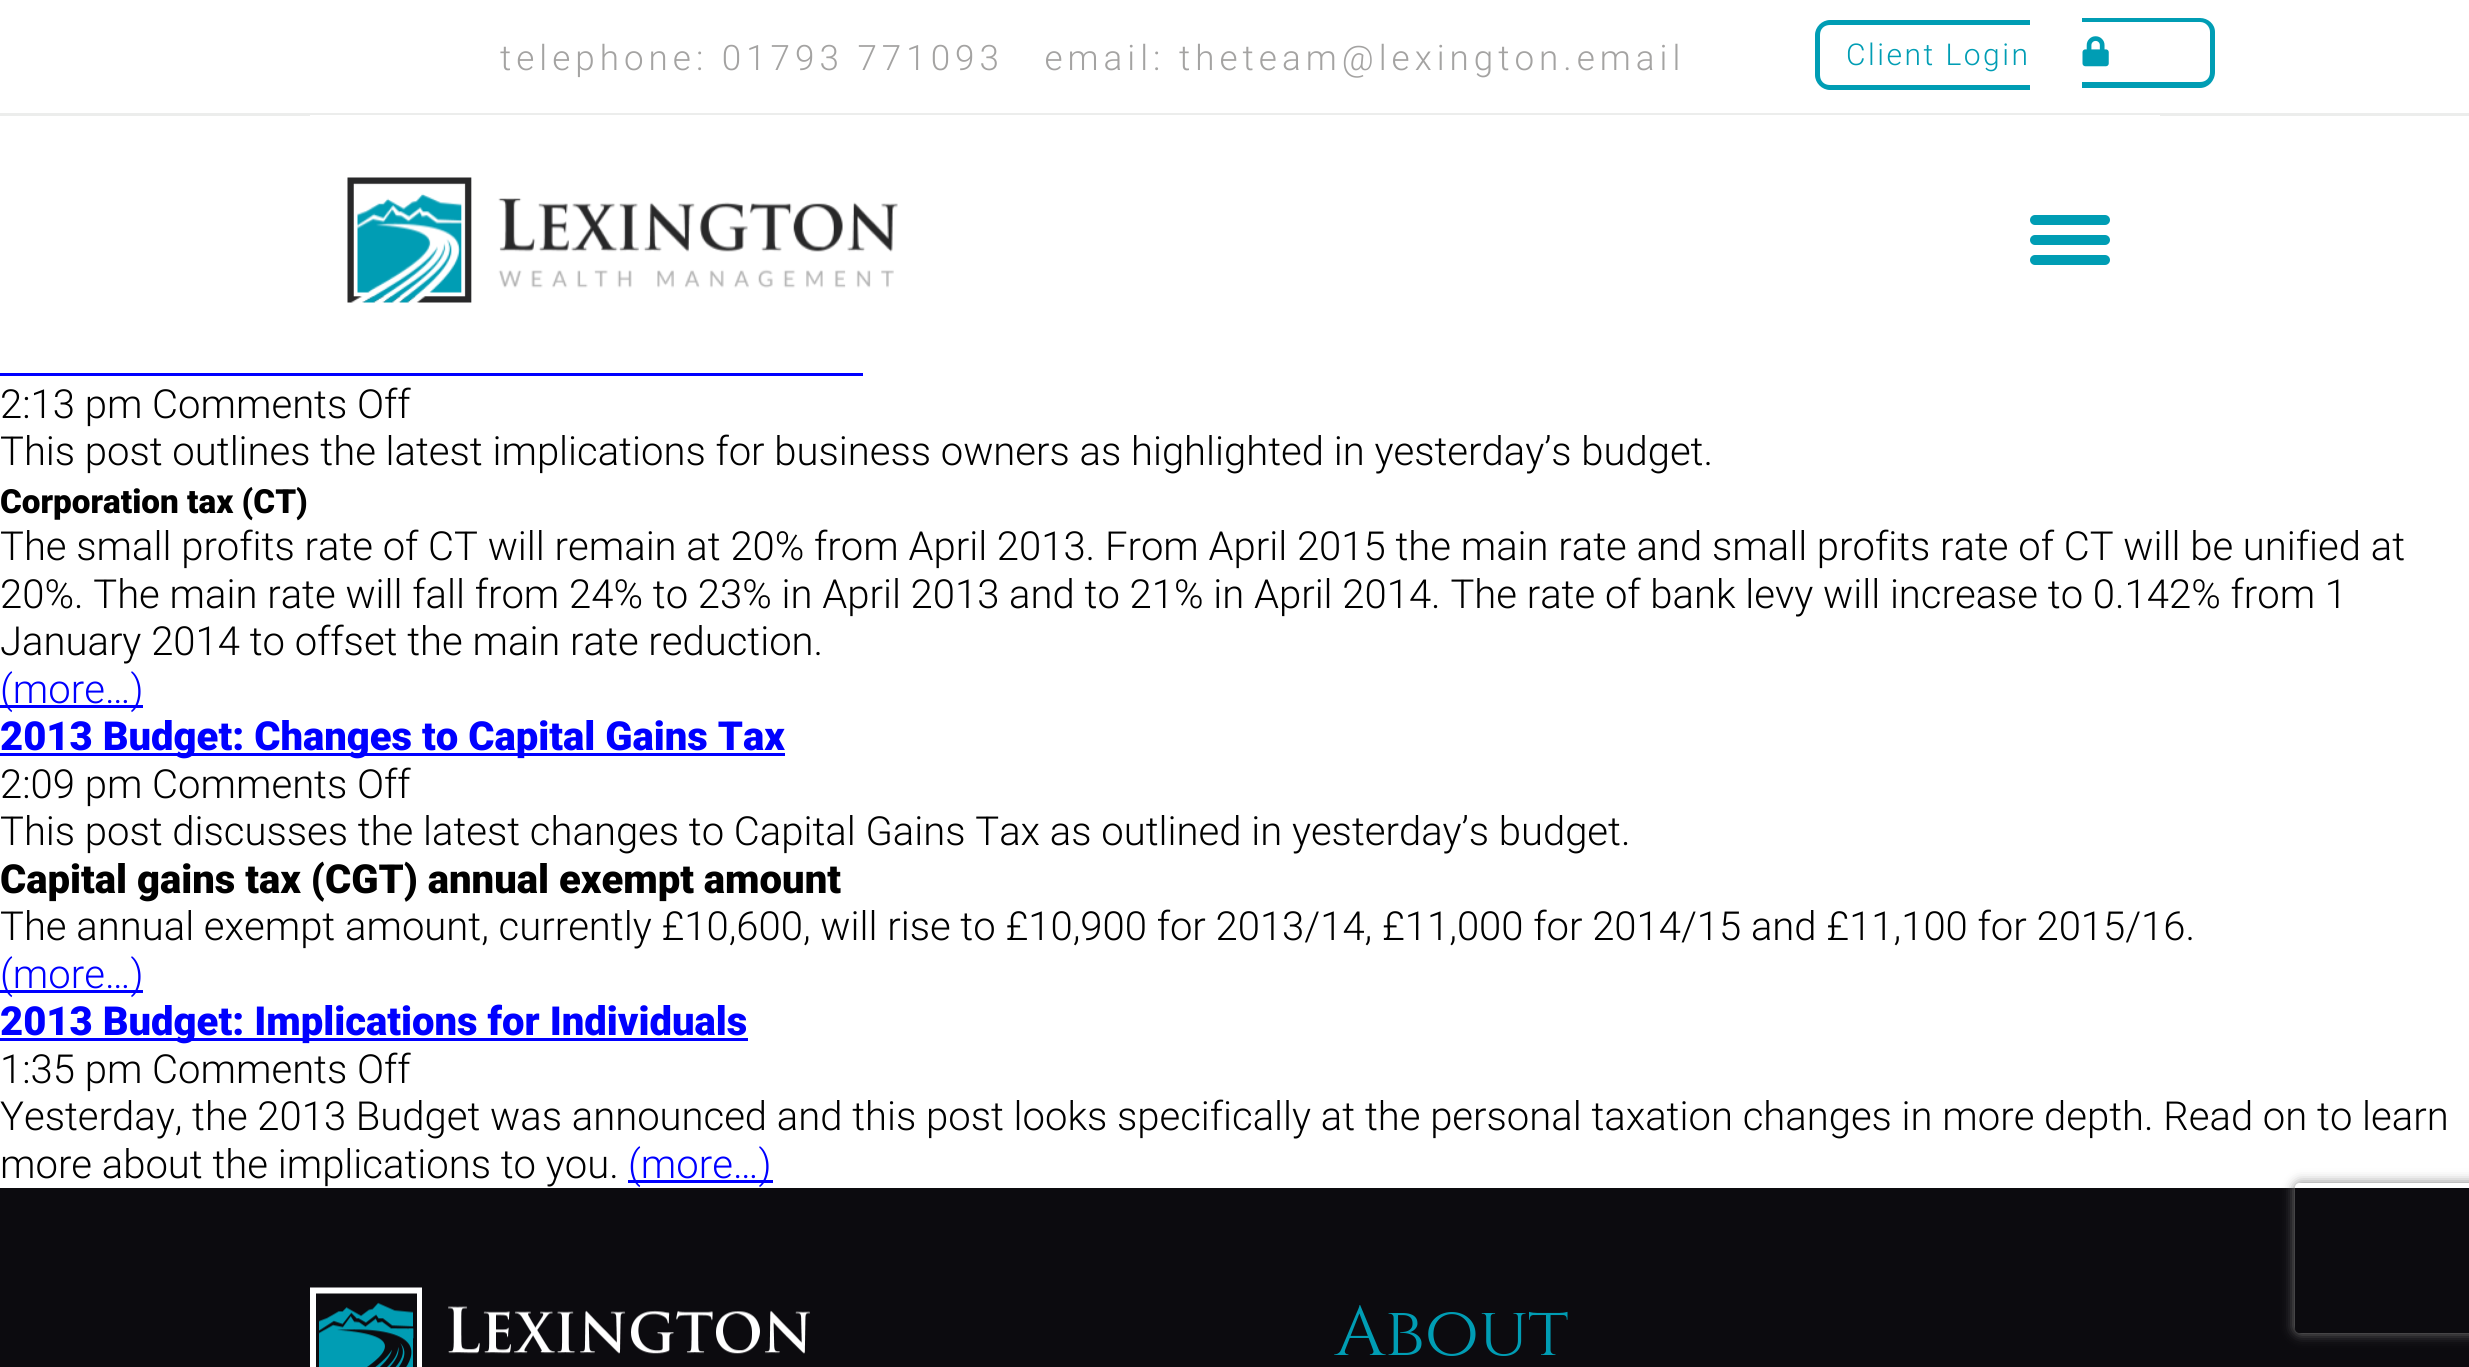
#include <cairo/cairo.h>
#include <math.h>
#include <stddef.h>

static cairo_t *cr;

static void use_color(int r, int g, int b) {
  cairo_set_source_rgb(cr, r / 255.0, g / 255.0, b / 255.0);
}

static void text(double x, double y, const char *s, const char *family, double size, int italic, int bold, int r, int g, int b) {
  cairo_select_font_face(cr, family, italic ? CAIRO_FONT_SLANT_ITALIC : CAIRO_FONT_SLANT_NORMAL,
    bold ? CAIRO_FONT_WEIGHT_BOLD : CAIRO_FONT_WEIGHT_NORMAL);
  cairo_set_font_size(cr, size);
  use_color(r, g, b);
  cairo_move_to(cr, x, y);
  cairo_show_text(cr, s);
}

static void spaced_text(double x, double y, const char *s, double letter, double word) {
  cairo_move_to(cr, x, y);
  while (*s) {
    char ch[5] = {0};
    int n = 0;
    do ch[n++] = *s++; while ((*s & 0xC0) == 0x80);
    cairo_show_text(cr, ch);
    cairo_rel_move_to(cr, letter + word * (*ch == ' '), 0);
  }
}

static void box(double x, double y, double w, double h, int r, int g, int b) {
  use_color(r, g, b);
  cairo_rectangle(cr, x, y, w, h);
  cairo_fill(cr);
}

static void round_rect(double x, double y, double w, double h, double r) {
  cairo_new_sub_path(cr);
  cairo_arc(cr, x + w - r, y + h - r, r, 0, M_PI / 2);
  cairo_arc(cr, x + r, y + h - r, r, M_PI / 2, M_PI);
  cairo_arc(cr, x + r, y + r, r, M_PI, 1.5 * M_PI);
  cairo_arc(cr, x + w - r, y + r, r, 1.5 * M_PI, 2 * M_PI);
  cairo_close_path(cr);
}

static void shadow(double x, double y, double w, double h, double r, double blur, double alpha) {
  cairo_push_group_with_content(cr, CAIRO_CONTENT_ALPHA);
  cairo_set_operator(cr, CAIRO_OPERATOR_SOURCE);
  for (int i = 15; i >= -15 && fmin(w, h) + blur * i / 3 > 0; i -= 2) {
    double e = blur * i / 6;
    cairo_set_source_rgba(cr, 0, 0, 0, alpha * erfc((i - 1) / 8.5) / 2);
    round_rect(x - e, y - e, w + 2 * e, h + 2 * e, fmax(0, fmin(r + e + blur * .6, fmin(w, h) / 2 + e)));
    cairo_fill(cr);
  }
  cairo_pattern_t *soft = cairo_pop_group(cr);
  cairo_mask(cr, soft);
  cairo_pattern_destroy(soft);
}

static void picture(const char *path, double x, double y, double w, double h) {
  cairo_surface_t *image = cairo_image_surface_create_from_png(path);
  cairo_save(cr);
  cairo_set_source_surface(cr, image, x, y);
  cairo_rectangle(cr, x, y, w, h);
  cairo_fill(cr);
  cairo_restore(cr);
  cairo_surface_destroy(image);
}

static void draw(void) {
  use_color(255, 255, 255);
  cairo_paint(cr);
  box(0, 113, 2469, 3, 236, 237, 236);
  use_color(0, 157, 180);
  cairo_set_fill_rule(cr, CAIRO_FILL_RULE_EVEN_ODD);
  cairo_new_path(cr);
  cairo_move_to(cr, 1830, 20);
  cairo_line_to(cr, 2030, 20);
  cairo_line_to(cr, 2030, 90);
  cairo_line_to(cr, 1830, 90);
  cairo_curve_to(cr, 1822, 90, 1815, 83, 1815, 75);
  cairo_line_to(cr, 1815, 35);
  cairo_curve_to(cr, 1815, 27, 1822, 20, 1830, 20);
  cairo_close_path(cr);
  cairo_move_to(cr, 1830, 25);
  cairo_line_to(cr, 2030, 25);
  cairo_line_to(cr, 2030, 85);
  cairo_line_to(cr, 1830, 85);
  cairo_curve_to(cr, 1824, 85, 1820, 81, 1820, 75);
  cairo_line_to(cr, 1820, 35);
  cairo_curve_to(cr, 1820, 29, 1824, 25, 1830, 25);
  cairo_close_path(cr);
  cairo_fill(cr);
  cairo_new_path(cr);
  cairo_move_to(cr, 2082, 18);
  cairo_line_to(cr, 2200, 18);
  cairo_curve_to(cr, 2208, 18, 2215, 24, 2215, 32);
  cairo_line_to(cr, 2215, 72);
  cairo_curve_to(cr, 2215, 81, 2208, 88, 2200, 88);
  cairo_line_to(cr, 2082, 88);
  cairo_close_path(cr);
  cairo_move_to(cr, 2082, 22);
  cairo_line_to(cr, 2200, 22);
  cairo_curve_to(cr, 2206, 22, 2210, 27, 2210, 32);
  cairo_line_to(cr, 2210, 72);
  cairo_curve_to(cr, 2210, 78, 2206, 82, 2200, 82);
  cairo_line_to(cr, 2082, 82);
  cairo_close_path(cr);
  cairo_fill(cr);
  picture("img_01.png", 2082, 36, 27, 31);
  box(310, 115, 1850, 1, 255, 255, 255);
  picture("img_02.png", 347, 177, 551, 126);
  use_color(0, 157, 180);
  round_rect(2030, 215, 80, 10, 5);
  cairo_fill(cr);
  round_rect(2030, 235, 80, 10, 5);
  cairo_fill(cr);
  round_rect(2030, 255, 80, 10, 5);
  cairo_fill(cr);
  box(0, 373, 863, 3, 0, 0, 255);
  box(0, 705, 143, 3, 0, 0, 255);
  box(0, 753, 785, 3, 0, 0, 255);
  box(0, 990, 143, 3, 0, 0, 255);
  box(0, 1038, 748, 3, 0, 0, 255);
  box(628, 1180, 145, 3, 0, 0, 255);
  box(0, 1188, 2469, 179, 12, 11, 15);
  picture("img_03.png", 310, 1287, 500, 80);
  cairo_save(cr);
  cairo_new_path(cr);
  cairo_move_to(cr, 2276, 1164);
  cairo_line_to(cr, 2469, 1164);
  cairo_line_to(cr, 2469, 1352);
  cairo_line_to(cr, 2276, 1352);
  cairo_close_path(cr);
  cairo_move_to(cr, 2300, 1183);
  cairo_line_to(cr, 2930, 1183);
  cairo_curve_to(cr, 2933, 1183, 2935, 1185, 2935, 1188);
  cairo_line_to(cr, 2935, 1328);
  cairo_curve_to(cr, 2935, 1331, 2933, 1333, 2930, 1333);
  cairo_line_to(cr, 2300, 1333);
  cairo_curve_to(cr, 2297, 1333, 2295, 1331, 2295, 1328);
  cairo_line_to(cr, 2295, 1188);
  cairo_curve_to(cr, 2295, 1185, 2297, 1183, 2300, 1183);
  cairo_close_path(cr);
  cairo_clip(cr);
  use_color(128, 128, 128);
  shadow(2295, 1183, 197, 150, 5, 6, 1);
  cairo_restore(cr);
  cairo_select_font_face(cr, "Roboto Light", CAIRO_FONT_SLANT_NORMAL, CAIRO_FONT_WEIGHT_NORMAL);
  cairo_set_font_size(cr, 35);
  use_color(164, 163, 162);
  spaced_text(500, 70, "telephone: 01793 771093   email: theteam@lexington.email", 5, 0);
  cairo_set_font_size(cr, 30);
  use_color(0, 157, 180);
  spaced_text(1846, 65, "Client Login", 2.5, 0);
  text(0, 418, "2:13 pm Comments Off", "Roboto Light", 40, 0, 0, 0, 0, 0);
  text(0, 465, "This post outlines the latest implications for business owners as highlighted in yesterday’s budget.", "Roboto Light", 40, 0, 0, 0, 0, 0);
  text(0, 513, "Corporation tax (CT)", "Roboto Black", 33.25, 0, 0, 0, 0, 0);
  text(0, 560, "The small profits rate of CT will remain at 20% from April 2013. From April 2015 the main rate and small profits rate of CT will be unified at", "Roboto Light", 40, 0, 0, 0, 0, 0);
  text(0, 608, "20%. The main rate will fall from 24% to 23% in April 2013 and to 21% in April 2014. The rate of bank levy will increase to 0.142% from 1", "Roboto Light", 40, 0, 0, 0, 0, 0);
  text(0, 655, "January 2014 to offset the main rate reduction.", "Roboto Light", 40, 0, 0, 0, 0, 0);
  text(0, 703, "(more…)", "Roboto Light", 40, 0, 0, 0, 0, 255);
  text(0, 750, "2013 Budget: Changes to Capital Gains Tax", "Roboto Black", 40, 0, 0, 0, 0, 255);
  text(0, 798, "2:09 pm Comments Off", "Roboto Light", 40, 0, 0, 0, 0, 0);
  text(0, 845, "This post discusses the latest changes to Capital Gains Tax as outlined in yesterday’s budget.", "Roboto Light", 40, 0, 0, 0, 0, 0);
  text(0, 893, "Capital gains tax (CGT) annual exempt amount", "Roboto Black", 40, 0, 0, 0, 0, 0);
  text(0, 940, "The annual exempt amount, currently £10,600, will rise to £10,900 for 2013/14, £11,000 for 2014/15 and £11,100 for 2015/16.", "Roboto Light", 40, 0, 0, 0, 0, 0);
  text(0, 988, "(more…)", "Roboto Light", 40, 0, 0, 0, 0, 255);
  text(0, 1035, "2013 Budget: Implications for Individuals", "Roboto Black", 40, 0, 0, 0, 0, 255);
  text(0, 1083, "1:35 pm Comments Off", "Roboto Light", 40, 0, 0, 0, 0, 0);
  text(0, 1130, "Yesterday, the 2013 Budget was announced and this post looks specifically at the personal taxation changes in more depth. Read on to learn", "Roboto Light", 40, 0, 0, 0, 0, 0);
  text(0, 1178, "more about the implications to you.", "Roboto Light", 40, 0, 0, 0, 0, 0);
  text(628, 1178, "(more…)", "Roboto Light", 40, 0, 0, 0, 0, 255);
  text(1335, 1355, "About", "Cinzel", 70, 0, 0, 0, 157, 180);
}

int main(void) {
  cairo_surface_t *surface = cairo_image_surface_create(CAIRO_FORMAT_RGB24, 2469, 1367);
  cr = cairo_create(surface);
  cairo_font_options_t *options = cairo_font_options_create();
  cairo_font_options_set_hint_metrics(options, CAIRO_HINT_METRICS_OFF);
  cairo_font_options_set_hint_style(options, CAIRO_HINT_STYLE_NONE);
  cairo_set_font_options(cr, options);
  cairo_set_miter_limit(cr, 4);
  draw();
  cairo_surface_write_to_png(surface, "out.png");
  cairo_font_options_destroy(options);
  cairo_destroy(cr);
  cairo_surface_destroy(surface);
  return 0;
}
